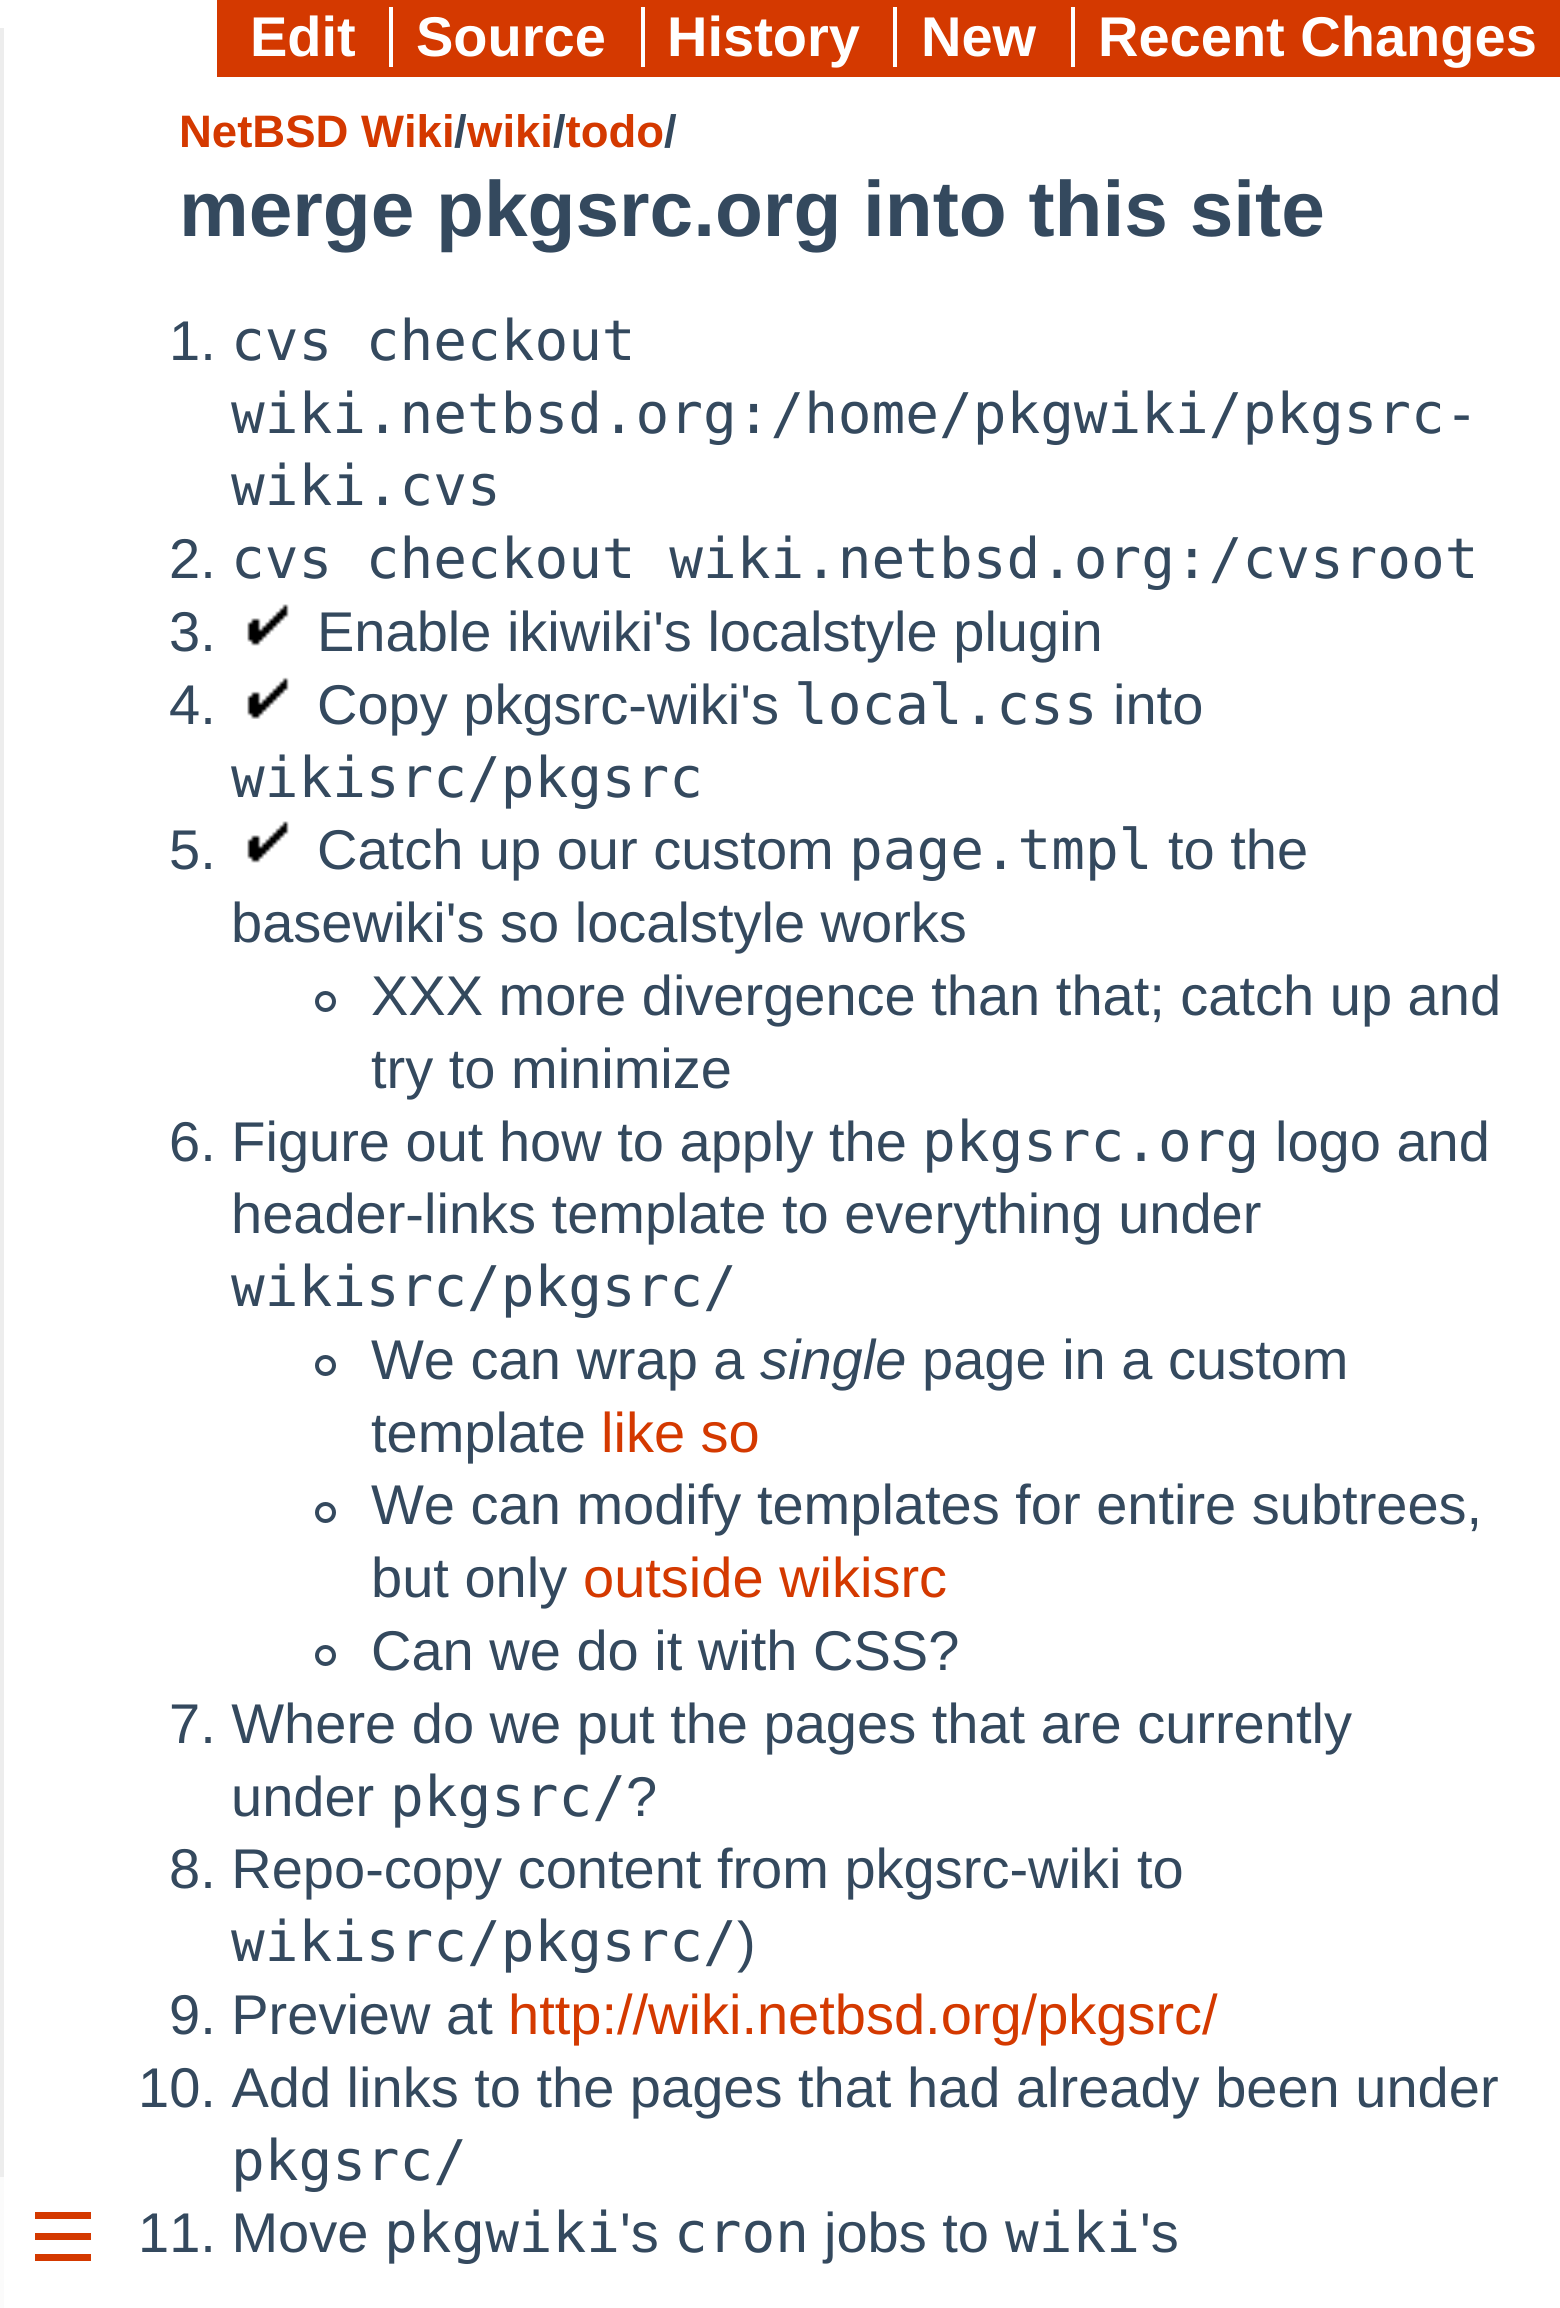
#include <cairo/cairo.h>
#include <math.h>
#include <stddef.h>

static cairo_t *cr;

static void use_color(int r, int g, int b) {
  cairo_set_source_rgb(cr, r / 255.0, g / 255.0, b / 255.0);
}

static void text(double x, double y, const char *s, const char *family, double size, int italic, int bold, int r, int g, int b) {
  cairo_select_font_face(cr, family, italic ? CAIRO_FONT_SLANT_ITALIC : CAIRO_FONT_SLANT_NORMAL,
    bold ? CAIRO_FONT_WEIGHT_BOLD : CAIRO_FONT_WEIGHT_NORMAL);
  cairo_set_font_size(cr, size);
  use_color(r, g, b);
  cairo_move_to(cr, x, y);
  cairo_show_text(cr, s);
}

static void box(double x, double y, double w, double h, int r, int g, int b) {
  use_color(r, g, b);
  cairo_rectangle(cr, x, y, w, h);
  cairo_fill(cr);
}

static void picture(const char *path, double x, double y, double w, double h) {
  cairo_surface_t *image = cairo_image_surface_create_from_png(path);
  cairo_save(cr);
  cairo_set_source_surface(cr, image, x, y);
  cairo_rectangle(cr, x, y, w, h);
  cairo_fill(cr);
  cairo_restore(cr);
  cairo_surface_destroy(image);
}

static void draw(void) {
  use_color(255, 255, 255);
  cairo_paint(cr);
  box(217, 0, 1343, 77, 212, 57, 0);
  box(389, 7, 4, 60, 255, 255, 255);
  box(641, 7, 4, 60, 255, 255, 255);
  box(893, 7, 4, 60, 255, 255, 255);
  box(1071, 7, 4, 60, 255, 255, 255);
  box(35, 2212, 56, 7, 212, 57, 0);
  box(35, 2233, 56, 7, 212, 57, 0);
  box(35, 2254, 56, 7, 212, 57, 0);
  box(0, 28, 4, 2149, 237, 237, 237);
  box(0, 2177, 4, 131, 251, 251, 251);
  picture("img_01.png", 247, 604, 42, 42);
  picture("img_02.png", 247, 677, 42, 42);
  picture("img_01.png", 247, 821, 42, 42);
  cairo_arc(cr, 325.5, 1001.5, 8.5, 0, 2 * M_PI);
  use_color(52, 73, 94);
  cairo_set_line_width(cr, 4);
  cairo_stroke(cr);
  cairo_arc(cr, 325.5, 1365.5, 8.5, 0, 2 * M_PI);
  cairo_stroke(cr);
  cairo_arc(cr, 325.5, 1512.5, 8.5, 0, 2 * M_PI);
  cairo_stroke(cr);
  cairo_arc(cr, 325.5, 1655.5, 8.5, 0, 2 * M_PI);
  cairo_stroke(cr);
  text(250, 56, "Edit", "Liberation Sans", 56, 0, 1, 255, 255, 255);
  text(416, 56, "Source", "Liberation Sans", 56, 0, 1, 255, 255, 255);
  text(667, 56, "History", "Liberation Sans", 56, 0, 1, 255, 255, 255);
  text(921, 56, "New", "Liberation Sans", 56, 0, 1, 255, 255, 255);
  text(1098, 56, "Recent Changes", "Liberation Sans", 56, 0, 1, 255, 255, 255);
  text(179, 147, "NetBSD Wiki", "Liberation Sans", 45.5, 0, 1, 212, 57, 0);
  text(454, 147, "/", "Liberation Sans", 45.5, 0, 1, 52, 73, 94);
  text(467, 147, "wiki todo", "Liberation Sans", 45.5, 0, 1, 212, 57, 0);
  text(553, 147, "/", "Liberation Sans", 45.5, 0, 1, 52, 73, 94);
  text(664, 147, "/", "Liberation Sans", 45.5, 0, 1, 52, 73, 94);
  text(179, 236, "merge pkgsrc.org into this site", "Liberation Sans", 78.4, 0, 1, 52, 73, 94);
  text(169, 360, "1.", "Liberation Sans", 56, 0, 0, 52, 73, 94);
  text(231, 360, "cvs checkout", "DejaVu Sans Mono", 56, 0, 0, 52, 73, 94);
  text(231, 433, "wiki.netbsd.org:/home/pkgwiki/pkgsrc-", "DejaVu Sans Mono", 56, 0, 0, 52, 73, 94);
  text(231, 505, "wiki.cvs", "DejaVu Sans Mono", 56, 0, 0, 52, 73, 94);
  text(169, 578, "2.", "Liberation Sans", 56, 0, 0, 52, 73, 94);
  text(231, 578, "cvs checkout wiki.netbsd.org:/cvsroot", "DejaVu Sans Mono", 56, 0, 0, 52, 73, 94);
  text(169, 651, "3.", "Liberation Sans", 56, 0, 0, 52, 73, 94);
  text(317, 651, "Enable ikiwiki's localstyle plugin", "Liberation Sans", 56, 0, 0, 52, 73, 94);
  text(169, 724, "4.", "Liberation Sans", 56, 0, 0, 52, 73, 94);
  text(317, 724, "Copy pkgsrc-wiki's", "Liberation Sans", 56, 0, 0, 52, 73, 94);
  text(794, 724, "local.css", "DejaVu Sans Mono", 56, 0, 0, 52, 73, 94);
  text(1113, 724, "into", "Liberation Sans", 56, 0, 0, 52, 73, 94);
  text(231, 797, "wikisrc/pkgsrc", "DejaVu Sans Mono", 56, 0, 0, 52, 73, 94);
  text(169, 869, "5.", "Liberation Sans", 56, 0, 0, 52, 73, 94);
  text(317, 869, "Catch up our custom", "Liberation Sans", 56, 0, 0, 52, 73, 94);
  text(849, 869, "page.tmpl", "DejaVu Sans Mono", 56, 0, 0, 52, 73, 94);
  text(1168, 869, "to the", "Liberation Sans", 56, 0, 0, 52, 73, 94);
  text(231, 942, "basewiki's so localstyle works", "Liberation Sans", 56, 0, 0, 52, 73, 94);
  text(371, 1015, "XXX more divergence than that; catch up and", "Liberation Sans", 56, 0, 0, 52, 73, 94);
  text(371, 1088, "try to minimize", "Liberation Sans", 56, 0, 0, 52, 73, 94);
  text(169, 1161, "6. Figure out how to apply the", "Liberation Sans", 56, 0, 0, 52, 73, 94);
  text(922, 1161, "pkgsrc.org", "DejaVu Sans Mono", 56, 0, 0, 52, 73, 94);
  text(1275, 1161, "logo and", "Liberation Sans", 56, 0, 0, 52, 73, 94);
  text(231, 1233, "header-links template to everything under", "Liberation Sans", 56, 0, 0, 52, 73, 94);
  text(231, 1306, "wikisrc/pkgsrc/", "DejaVu Sans Mono", 56, 0, 0, 52, 73, 94);
  text(371, 1379, "We can wrap a", "Liberation Sans", 56, 0, 0, 52, 73, 94);
  text(760, 1379, "single", "Liberation Sans", 56, 1, 0, 52, 73, 94);
  text(922, 1379, "page in a custom", "Liberation Sans", 56, 0, 0, 52, 73, 94);
  text(371, 1452, "template", "Liberation Sans", 56, 0, 0, 52, 73, 94);
  text(601, 1452, "like so", "Liberation Sans", 56, 0, 0, 212, 57, 0);
  text(371, 1524, "We can modify templates for entire subtrees,", "Liberation Sans", 56, 0, 0, 52, 73, 94);
  text(371, 1597, "but only", "Liberation Sans", 56, 0, 0, 52, 73, 94);
  text(583, 1597, "outside wikisrc", "Liberation Sans", 56, 0, 0, 212, 57, 0);
  text(371, 1670, "Can we do it with CSS?", "Liberation Sans", 56, 0, 0, 52, 73, 94);
  text(169, 1743, "7. Where do we put the pages that are currently", "Liberation Sans", 56, 0, 0, 52, 73, 94);
  text(231, 1816, "under", "Liberation Sans", 56, 0, 0, 52, 73, 94);
  text(390, 1816, "pkgsrc/", "DejaVu Sans Mono", 56, 0, 0, 52, 73, 94);
  text(626, 1816, "?", "Liberation Sans", 56, 0, 0, 52, 73, 94);
  text(169, 1888, "8. Repo-copy content from pkgsrc-wiki to", "Liberation Sans", 56, 0, 0, 52, 73, 94);
  text(231, 1961, "wikisrc/pkgsrc/", "DejaVu Sans Mono", 56, 0, 0, 52, 73, 94);
  text(737, 1961, ")", "Liberation Sans", 56, 0, 0, 52, 73, 94);
  text(169, 2034, "9. Preview at", "Liberation Sans", 56, 0, 0, 52, 73, 94);
  text(508, 2034, "http://wiki.netbsd.org/pkgsrc/", "Liberation Sans", 56, 0, 0, 212, 57, 0);
  text(138, 2107, "10. Add links to the pages that had already been under", "Liberation Sans", 56, 0, 0, 52, 73, 94);
  text(231, 2180, "pkgsrc/", "DejaVu Sans Mono", 56, 0, 0, 52, 73, 94);
  text(138, 2252, "11. Move", "Liberation Sans", 56, 0, 0, 52, 73, 94);
  text(384, 2252, "pkgwiki", "DejaVu Sans Mono", 56, 0, 0, 52, 73, 94);
  text(620, 2252, "'s", "Liberation Sans", 56, 0, 0, 52, 73, 94);
  text(674, 2252, "cron", "DejaVu Sans Mono", 56, 0, 0, 52, 73, 94);
  text(824, 2252, "jobs to", "Liberation Sans", 56, 0, 0, 52, 73, 94);
  text(1005, 2252, "wiki", "DejaVu Sans Mono", 56, 0, 0, 52, 73, 94);
  text(1140, 2252, "'s", "Liberation Sans", 56, 0, 0, 52, 73, 94);
}

int main(void) {
  cairo_surface_t *surface = cairo_image_surface_create(CAIRO_FORMAT_RGB24, 1560, 2308);
  cr = cairo_create(surface);
  cairo_font_options_t *options = cairo_font_options_create();
  cairo_font_options_set_hint_metrics(options, CAIRO_HINT_METRICS_OFF);
  cairo_font_options_set_hint_style(options, CAIRO_HINT_STYLE_NONE);
  cairo_set_font_options(cr, options);
  cairo_set_miter_limit(cr, 4);
  draw();
  cairo_surface_write_to_png(surface, "out.png");
  cairo_font_options_destroy(options);
  cairo_destroy(cr);
  cairo_surface_destroy(surface);
  return 0;
}
